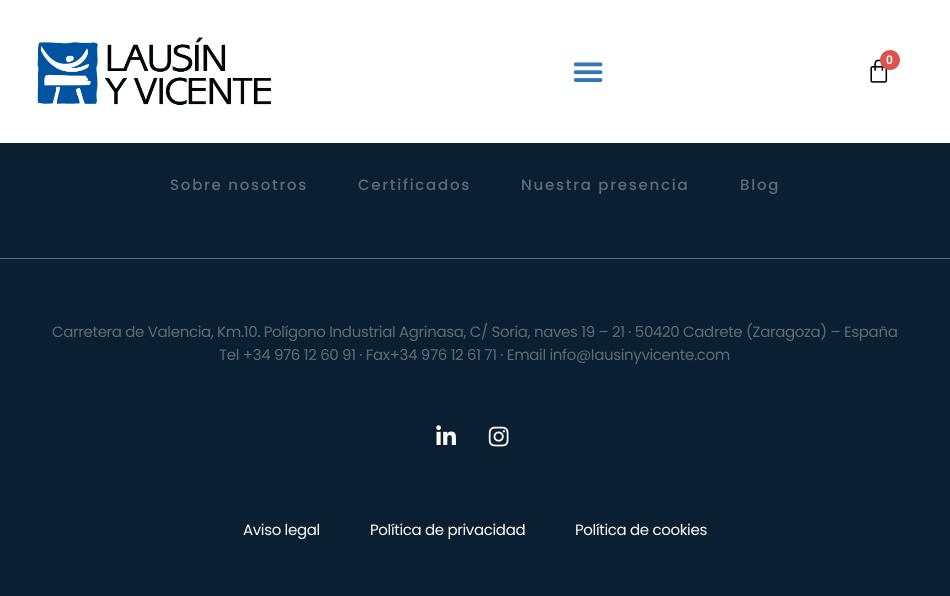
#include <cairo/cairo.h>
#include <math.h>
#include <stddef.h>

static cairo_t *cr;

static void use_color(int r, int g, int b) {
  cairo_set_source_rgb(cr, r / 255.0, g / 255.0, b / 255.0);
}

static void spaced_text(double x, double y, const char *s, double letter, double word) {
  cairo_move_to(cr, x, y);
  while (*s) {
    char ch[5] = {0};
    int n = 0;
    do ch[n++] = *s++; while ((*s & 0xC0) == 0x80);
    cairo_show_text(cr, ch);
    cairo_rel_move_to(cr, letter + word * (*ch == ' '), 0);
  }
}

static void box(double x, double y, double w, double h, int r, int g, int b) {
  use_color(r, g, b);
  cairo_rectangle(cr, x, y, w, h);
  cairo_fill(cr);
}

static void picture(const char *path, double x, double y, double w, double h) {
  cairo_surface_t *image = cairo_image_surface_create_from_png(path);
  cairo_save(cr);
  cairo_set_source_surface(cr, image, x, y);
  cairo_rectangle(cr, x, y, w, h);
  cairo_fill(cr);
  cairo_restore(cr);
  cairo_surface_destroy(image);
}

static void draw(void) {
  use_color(10, 32, 50);
  cairo_paint(cr);
  box(0, 0, 950, 143, 255, 255, 255);
  picture("img_01.png", 37, 37, 235, 68);
  picture("img_02.png", 870, 59, 18, 24);
  use_color(217, 83, 79);
  cairo_arc(cr, 890, 60, 10, 0, 2 * M_PI);
  cairo_fill(cr);
  picture("img_03.png", 573, 62, 30, 20);
  box(0, 258, 950, 1, 93, 108, 120);
  picture("img_04.png", 436, 425, 20, 20);
  picture("img_05.png", 488, 426, 21, 21);
  cairo_select_font_face(cr, "Roboto SemiBold", CAIRO_FONT_SLANT_NORMAL, CAIRO_FONT_WEIGHT_NORMAL);
  cairo_set_font_size(cr, 12);
  use_color(255, 255, 255);
  spaced_text(886, 64, "0", -0.34, 0);
  cairo_select_font_face(cr, "Poppins Medium", CAIRO_FONT_SLANT_NORMAL, CAIRO_FONT_WEIGHT_NORMAL);
  cairo_set_font_size(cr, 15);
  use_color(93, 108, 120);
  spaced_text(170, 190, "Sobre nosotros", 1.75, 0);
  spaced_text(358, 190, "Certificados", 1.75, 0);
  spaced_text(521, 190, "Nuestra presencia", 1.75, 0);
  spaced_text(740, 190, "Blog", 1.75, 0);
  cairo_select_font_face(cr, "Poppins", CAIRO_FONT_SLANT_NORMAL, CAIRO_FONT_WEIGHT_NORMAL);
  spaced_text(52, 337, "Carretera de Valencia, Km.10. Polígono Industrial Agrinasa, C/ Soria, naves 19 – 21 · 50420 Cadrete (Zaragoza) – España", -0.34, 0);
  spaced_text(219, 360, "Tel +34 976 12 60 91 · Fax+34 976 12 61 71 · Email info@lausinyvicente.com", -0.34, 0);
  use_color(255, 255, 255);
  spaced_text(243, 535, "Aviso legal", -0.34, 0);
  spaced_text(370, 535, "Política de privacidad", -0.34, 0);
  spaced_text(575, 535, "Política de cookies", -0.34, 0);
}

int main(void) {
  cairo_surface_t *surface = cairo_image_surface_create(CAIRO_FORMAT_RGB24, 950, 596);
  cr = cairo_create(surface);
  cairo_font_options_t *options = cairo_font_options_create();
  cairo_font_options_set_hint_metrics(options, CAIRO_HINT_METRICS_OFF);
  cairo_font_options_set_hint_style(options, CAIRO_HINT_STYLE_NONE);
  cairo_set_font_options(cr, options);
  cairo_set_miter_limit(cr, 4);
  draw();
  cairo_surface_write_to_png(surface, "out.png");
  cairo_font_options_destroy(options);
  cairo_destroy(cr);
  cairo_surface_destroy(surface);
  return 0;
}
